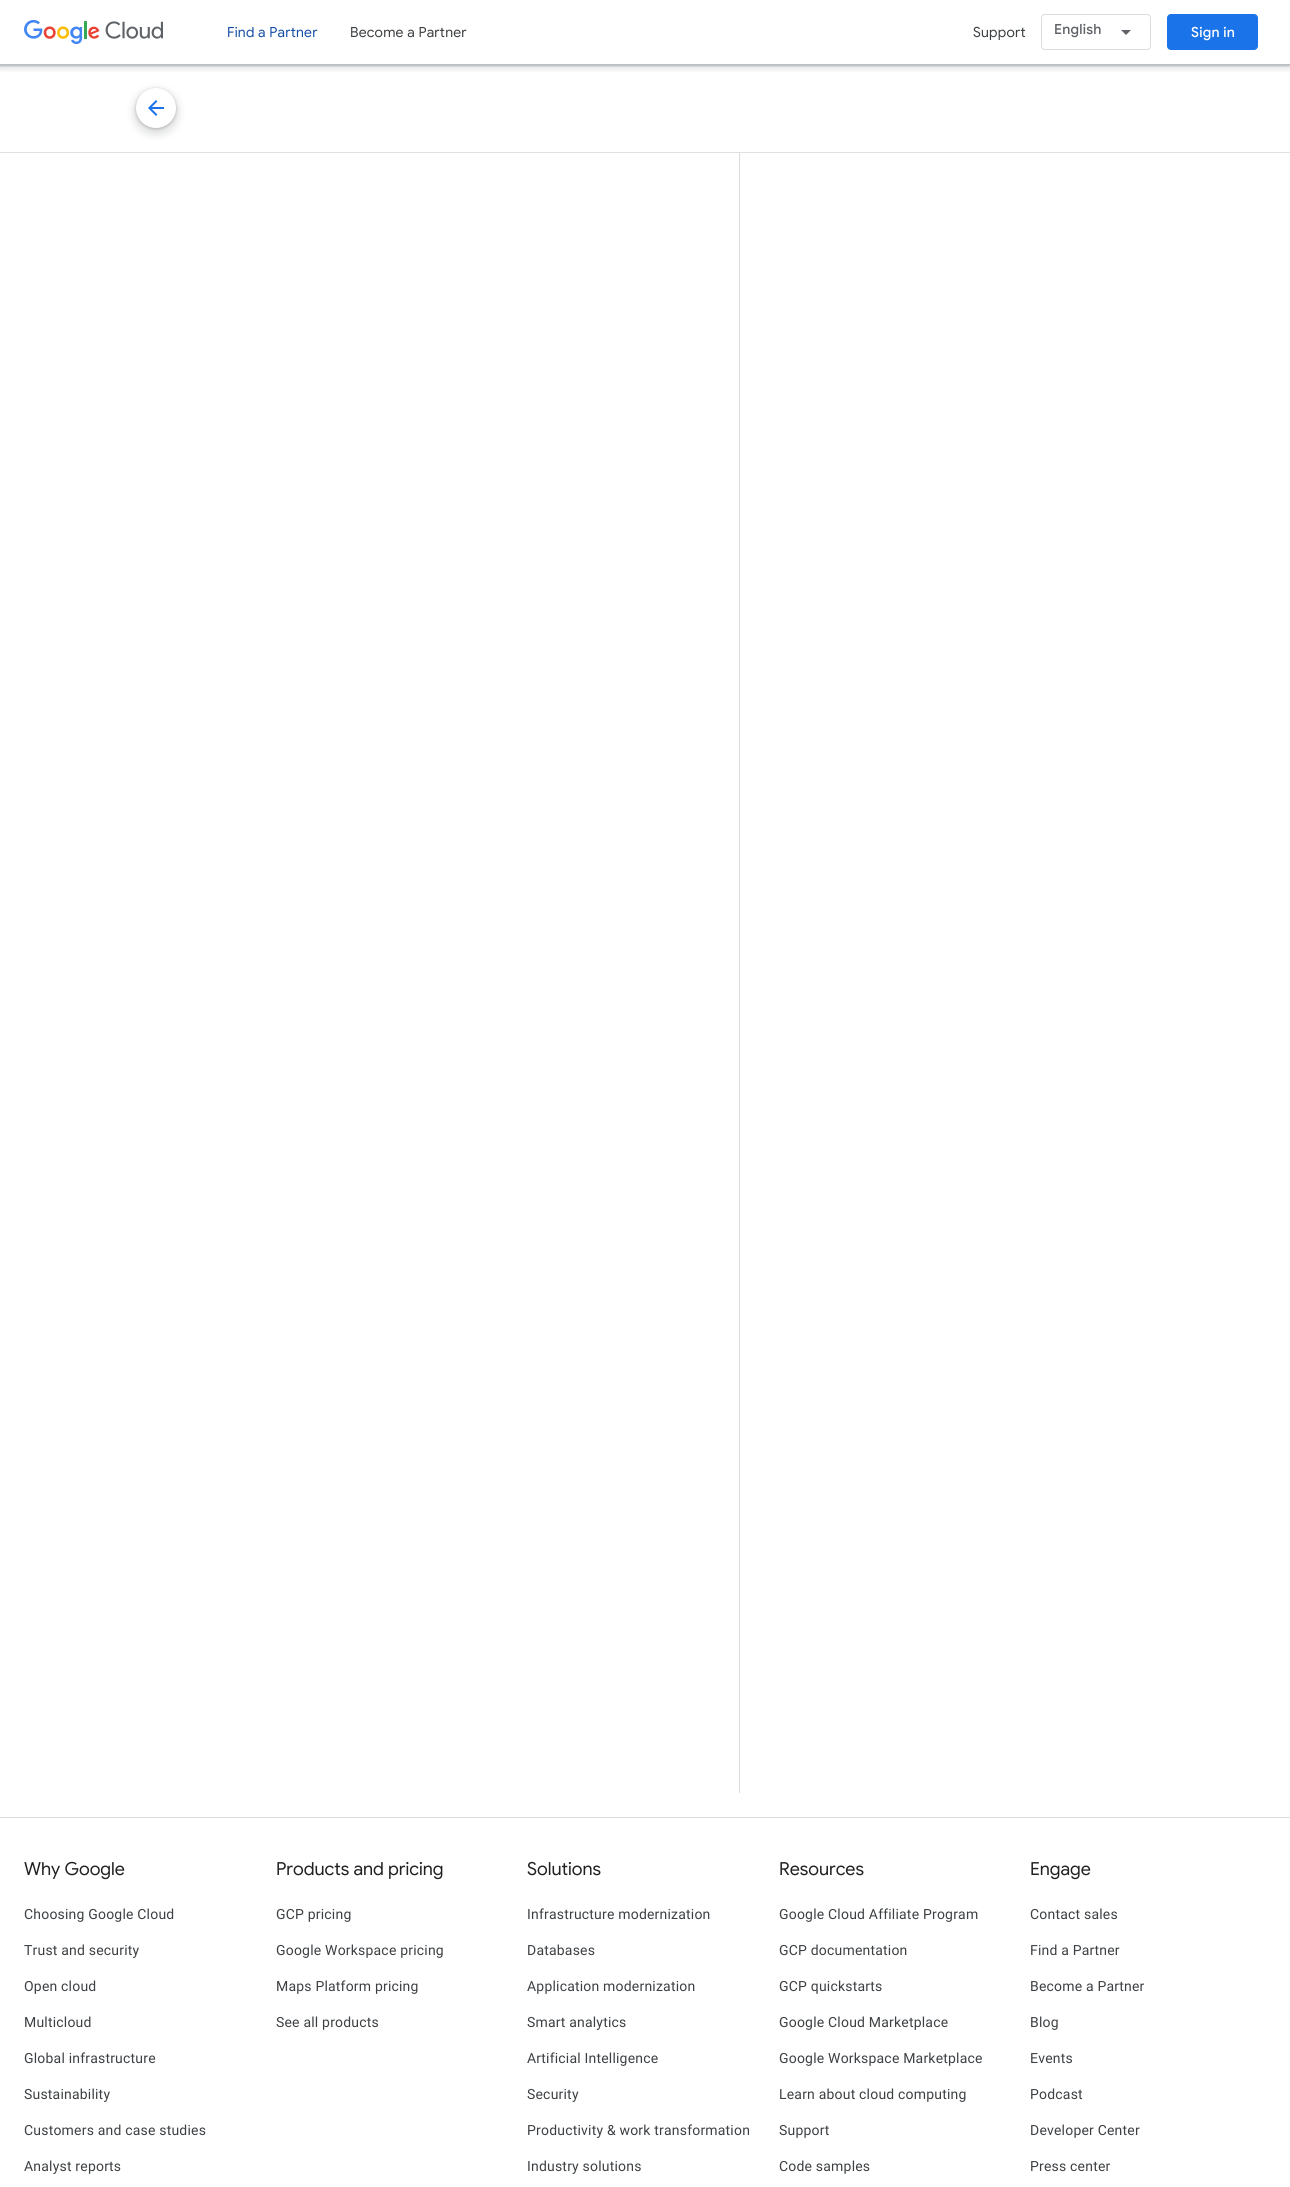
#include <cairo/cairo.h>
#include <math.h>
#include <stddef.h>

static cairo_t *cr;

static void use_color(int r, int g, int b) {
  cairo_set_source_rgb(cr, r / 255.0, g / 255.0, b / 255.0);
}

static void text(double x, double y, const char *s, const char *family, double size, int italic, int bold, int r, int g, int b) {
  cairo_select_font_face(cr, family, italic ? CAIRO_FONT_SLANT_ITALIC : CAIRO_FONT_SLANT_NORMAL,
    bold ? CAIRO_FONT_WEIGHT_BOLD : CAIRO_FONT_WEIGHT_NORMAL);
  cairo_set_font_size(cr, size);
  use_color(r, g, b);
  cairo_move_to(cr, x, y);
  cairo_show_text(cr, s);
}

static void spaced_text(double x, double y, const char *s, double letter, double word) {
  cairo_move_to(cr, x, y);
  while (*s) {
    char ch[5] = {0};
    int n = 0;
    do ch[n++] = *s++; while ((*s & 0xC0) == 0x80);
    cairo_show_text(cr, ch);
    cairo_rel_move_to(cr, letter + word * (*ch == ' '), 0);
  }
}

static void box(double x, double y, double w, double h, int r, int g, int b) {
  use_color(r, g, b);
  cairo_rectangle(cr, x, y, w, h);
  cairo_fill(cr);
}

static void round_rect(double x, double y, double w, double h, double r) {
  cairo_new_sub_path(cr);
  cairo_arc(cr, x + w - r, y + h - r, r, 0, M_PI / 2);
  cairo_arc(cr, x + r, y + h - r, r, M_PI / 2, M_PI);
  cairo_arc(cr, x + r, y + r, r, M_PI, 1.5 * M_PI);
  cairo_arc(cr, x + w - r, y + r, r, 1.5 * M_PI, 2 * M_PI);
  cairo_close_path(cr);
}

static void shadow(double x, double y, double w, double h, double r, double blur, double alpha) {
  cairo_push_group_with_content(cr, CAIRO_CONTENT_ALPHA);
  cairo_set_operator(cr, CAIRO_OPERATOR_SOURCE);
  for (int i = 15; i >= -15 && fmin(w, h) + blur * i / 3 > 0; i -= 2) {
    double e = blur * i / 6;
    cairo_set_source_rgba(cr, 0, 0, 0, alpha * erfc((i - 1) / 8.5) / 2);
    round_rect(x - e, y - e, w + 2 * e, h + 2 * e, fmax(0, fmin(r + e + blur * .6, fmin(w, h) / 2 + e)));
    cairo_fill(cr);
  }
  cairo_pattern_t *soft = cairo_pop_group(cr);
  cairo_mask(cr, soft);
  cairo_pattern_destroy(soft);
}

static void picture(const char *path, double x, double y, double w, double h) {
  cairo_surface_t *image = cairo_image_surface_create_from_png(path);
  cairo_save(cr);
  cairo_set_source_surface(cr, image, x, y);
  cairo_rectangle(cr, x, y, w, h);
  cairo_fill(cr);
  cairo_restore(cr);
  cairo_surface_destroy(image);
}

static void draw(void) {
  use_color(255, 255, 255);
  cairo_paint(cr);
  cairo_save(cr);
  cairo_rectangle(cr, 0, 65, 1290, 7);
  cairo_clip(cr);
  use_color(60, 64, 67);
  shadow(-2, 0, 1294, 69, 0, 3, 0.15);
  cairo_restore(cr);
  cairo_save(cr);
  cairo_rectangle(cr, 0, 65, 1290, 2);
  cairo_clip(cr);
  use_color(60, 64, 67);
  shadow(0, 1, 1290, 65, 0, 1, 0.3);
  cairo_restore(cr);
  box(0, 64, 1290, 1, 189, 193, 198);
  picture("img_01.png", 24, 19, 139, 26);
  round_rect(1041.5, 14.5, 109, 35, 3.5);
  use_color(218, 220, 224);
  cairo_set_line_width(cr, 1);
  cairo_stroke(cr);
  use_color(95, 99, 104);
  cairo_new_path(cr);
  cairo_move_to(cr, 1121, 30);
  cairo_line_to(cr, 1126, 35);
  cairo_line_to(cr, 1131, 30);
  cairo_close_path(cr);
  cairo_fill(cr);
  use_color(26, 115, 232);
  round_rect(1167, 14, 91, 36, 4);
  cairo_fill(cr);
  use_color(60, 64, 67);
  shadow(133, 89, 46, 46, 23, 4, 0.15);
  shadow(136, 89, 40, 40, 20, 1.5, 0.3);
  use_color(255, 255, 255);
  cairo_arc(cr, 156, 108, 20, 0, 2 * M_PI);
  cairo_fill(cr);
  picture("img_02.png", 148, 100, 16, 16);
  box(0, 152, 1290, 1, 224, 224, 224);
  box(739, 153, 1, 1640, 218, 220, 224);
  box(0, 1817, 1290, 1, 218, 220, 224);
  cairo_select_font_face(cr, "Google Sans", CAIRO_FONT_SLANT_NORMAL, CAIRO_FONT_WEIGHT_NORMAL);
  cairo_set_font_size(cr, 14);
  use_color(23, 78, 166);
  spaced_text(227, 37, "Find a Partner", 0.25, 0);
  use_color(60, 64, 67);
  spaced_text(350, 37, "Become a Partner", 0.25, 0);
  spaced_text(973, 37, "Support", 0.25, 0);
  cairo_select_font_face(cr, "Google Sans Medium", CAIRO_FONT_SLANT_NORMAL, CAIRO_FONT_WEIGHT_NORMAL);
  use_color(95, 99, 104);
  spaced_text(1054, 34, "English", 0.25, 0);
  use_color(255, 255, 255);
  spaced_text(1191, 37, "Sign in", 0.25, 0);
  text(24, 1875, "Why Google", "Google Sans", 18, 0, 0, 33, 33, 33);
  cairo_select_font_face(cr, "Roboto", CAIRO_FONT_SLANT_NORMAL, CAIRO_FONT_WEIGHT_NORMAL);
  cairo_set_font_size(cr, 14);
  use_color(60, 64, 67);
  spaced_text(24, 1919, "Choosing Google Cloud", 0.2, 0);
  spaced_text(24, 1955, "Trust and security", 0.2, 0);
  spaced_text(24, 1991, "Open cloud", 0.2, 0);
  spaced_text(24, 2027, "Multicloud", 0.2, 0);
  spaced_text(24, 2063, "Global infrastructure", 0.2, 0);
  spaced_text(24, 2099, "Sustainability", 0.2, 0);
  spaced_text(24, 2135, "Customers and case studies", 0.2, 0);
  spaced_text(24, 2171, "Analyst reports", 0.2, 0);
  text(276, 1875, "Products and pricing", "Google Sans", 18, 0, 0, 33, 33, 33);
  cairo_select_font_face(cr, "Roboto", CAIRO_FONT_SLANT_NORMAL, CAIRO_FONT_WEIGHT_NORMAL);
  cairo_set_font_size(cr, 14);
  use_color(60, 64, 67);
  spaced_text(276, 1919, "GCP pricing", 0.2, 0);
  spaced_text(276, 1955, "Google Workspace pricing", 0.2, 0);
  spaced_text(276, 1991, "Maps Platform pricing", 0.2, 0);
  spaced_text(276, 2027, "See all products", 0.2, 0);
  text(527, 1875, "Solutions", "Google Sans", 18, 0, 0, 33, 33, 33);
  cairo_select_font_face(cr, "Roboto", CAIRO_FONT_SLANT_NORMAL, CAIRO_FONT_WEIGHT_NORMAL);
  cairo_set_font_size(cr, 14);
  use_color(60, 64, 67);
  spaced_text(527, 1919, "Infrastructure modernization", 0.2, 0);
  spaced_text(527, 1955, "Databases", 0.2, 0);
  spaced_text(527, 1991, "Application modernization", 0.2, 0);
  spaced_text(527, 2027, "Smart analytics", 0.2, 0);
  spaced_text(527, 2063, "Artificial Intelligence", 0.2, 0);
  spaced_text(527, 2099, "Security", 0.2, 0);
  spaced_text(527, 2135, "Productivity & work transformation", 0.2, 0);
  spaced_text(527, 2171, "Industry solutions", 0.2, 0);
  text(779, 1875, "Resources", "Google Sans", 18, 0, 0, 33, 33, 33);
  cairo_select_font_face(cr, "Roboto", CAIRO_FONT_SLANT_NORMAL, CAIRO_FONT_WEIGHT_NORMAL);
  cairo_set_font_size(cr, 14);
  use_color(60, 64, 67);
  spaced_text(779, 1919, "Google Cloud Affiliate Program", 0.2, 0);
  spaced_text(779, 1955, "GCP documentation", 0.2, 0);
  spaced_text(779, 1991, "GCP quickstarts", 0.2, 0);
  spaced_text(779, 2027, "Google Cloud Marketplace", 0.2, 0);
  spaced_text(779, 2063, "Google Workspace Marketplace", 0.2, 0);
  spaced_text(779, 2099, "Learn about cloud computing", 0.2, 0);
  spaced_text(779, 2135, "Support", 0.2, 0);
  spaced_text(779, 2171, "Code samples", 0.2, 0);
  text(1030, 1875, "Engage", "Google Sans", 18, 0, 0, 33, 33, 33);
  cairo_select_font_face(cr, "Roboto", CAIRO_FONT_SLANT_NORMAL, CAIRO_FONT_WEIGHT_NORMAL);
  cairo_set_font_size(cr, 14);
  use_color(60, 64, 67);
  spaced_text(1030, 1919, "Contact sales", 0.2, 0);
  spaced_text(1030, 1955, "Find a Partner", 0.2, 0);
  spaced_text(1030, 1991, "Become a Partner", 0.2, 0);
  spaced_text(1030, 2027, "Blog", 0.2, 0);
  spaced_text(1030, 2063, "Events", 0.2, 0);
  spaced_text(1030, 2099, "Podcast", 0.2, 0);
  spaced_text(1030, 2135, "Developer Center", 0.2, 0);
  spaced_text(1030, 2171, "Press center", 0.2, 0);
}

int main(void) {
  cairo_surface_t *surface = cairo_image_surface_create(CAIRO_FORMAT_RGB24, 1290, 2187);
  cr = cairo_create(surface);
  cairo_font_options_t *options = cairo_font_options_create();
  cairo_font_options_set_hint_metrics(options, CAIRO_HINT_METRICS_OFF);
  cairo_font_options_set_hint_style(options, CAIRO_HINT_STYLE_NONE);
  cairo_set_font_options(cr, options);
  cairo_set_miter_limit(cr, 4);
  draw();
  cairo_surface_write_to_png(surface, "out.png");
  cairo_font_options_destroy(options);
  cairo_destroy(cr);
  cairo_surface_destroy(surface);
  return 0;
}
